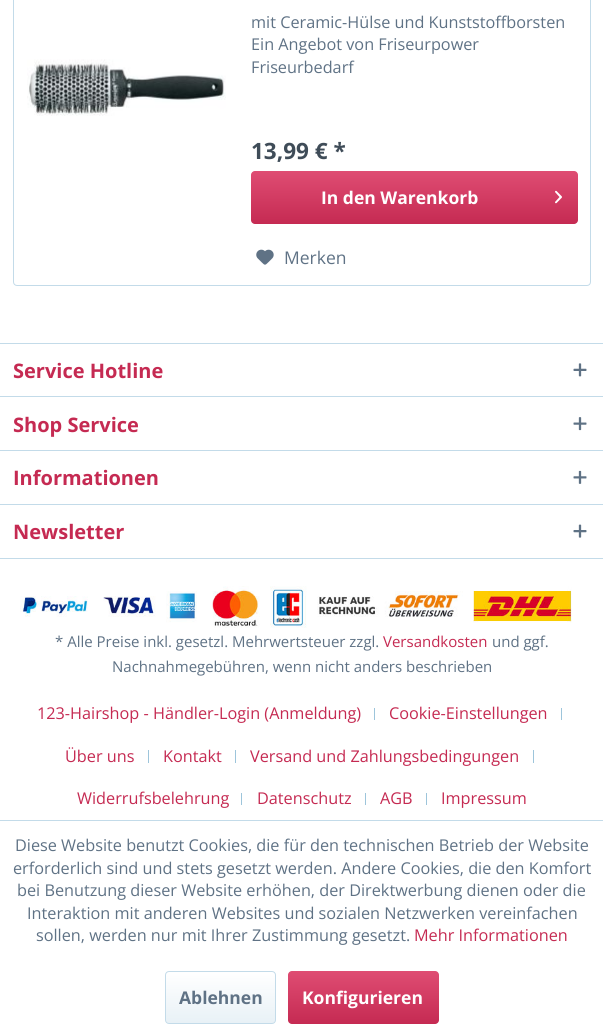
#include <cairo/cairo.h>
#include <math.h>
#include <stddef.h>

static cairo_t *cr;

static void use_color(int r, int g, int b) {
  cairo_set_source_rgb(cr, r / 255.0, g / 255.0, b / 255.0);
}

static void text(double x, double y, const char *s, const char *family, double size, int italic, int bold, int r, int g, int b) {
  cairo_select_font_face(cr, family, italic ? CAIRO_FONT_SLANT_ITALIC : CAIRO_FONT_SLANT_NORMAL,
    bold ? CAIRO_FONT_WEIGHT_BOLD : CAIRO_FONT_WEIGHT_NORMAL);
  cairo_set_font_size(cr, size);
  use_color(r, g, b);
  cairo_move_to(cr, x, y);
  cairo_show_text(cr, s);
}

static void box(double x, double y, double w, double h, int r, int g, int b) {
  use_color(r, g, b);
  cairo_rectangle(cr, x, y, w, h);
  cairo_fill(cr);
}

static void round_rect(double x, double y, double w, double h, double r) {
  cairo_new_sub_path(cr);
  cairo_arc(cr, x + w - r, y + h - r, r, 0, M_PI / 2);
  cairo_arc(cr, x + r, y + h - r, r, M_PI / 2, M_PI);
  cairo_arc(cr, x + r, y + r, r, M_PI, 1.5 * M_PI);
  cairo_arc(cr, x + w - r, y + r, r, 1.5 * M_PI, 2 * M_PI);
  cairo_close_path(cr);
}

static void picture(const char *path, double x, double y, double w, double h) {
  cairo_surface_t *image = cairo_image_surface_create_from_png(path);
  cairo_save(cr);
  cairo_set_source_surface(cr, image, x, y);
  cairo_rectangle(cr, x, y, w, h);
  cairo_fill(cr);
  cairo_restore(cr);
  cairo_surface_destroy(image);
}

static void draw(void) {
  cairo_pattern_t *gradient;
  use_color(255, 255, 255);
  cairo_paint(cr);
  round_rect(13.5, -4.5, 577, 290, 3.5);
  use_color(195, 219, 233);
  cairo_set_line_width(cr, 1);
  cairo_stroke(cr);
  picture("img_01.png", 27, 59, 199, 57);
  gradient = cairo_pattern_create_linear(414, 171, 414, 224);
  cairo_pattern_add_color_stop_rgba(gradient, 0, 0.875, 0.302, 0.451, 1);
  cairo_pattern_add_color_stop_rgba(gradient, 1, 0.773, 0.165, 0.322, 1);
  cairo_set_source(cr, gradient);
  cairo_pattern_destroy(gradient);
  round_rect(251, 171, 327, 53, 4);
  cairo_fill(cr);
  picture("img_02.png", 555, 190, 7, 14);
  picture("img_03.png", 256, 249, 18, 16);
  box(0, 343, 603, 1, 195, 219, 233);
  picture("img_04.png", 573, 363, 14, 14);
  box(0, 396, 603, 1, 195, 219, 233);
  picture("img_05.png", 573, 417, 14, 14);
  box(0, 450, 603, 1, 195, 219, 233);
  picture("img_06.png", 573, 470, 14, 14);
  box(0, 504, 603, 1, 195, 219, 233);
  box(0, 558, 603, 1, 195, 219, 233);
  picture("img_07.png", 573, 524, 14, 14);
  picture("img_08.png", 20, 586, 552, 42);
  box(374, 708, 1, 12, 157, 197, 219);
  box(561, 708, 1, 12, 157, 197, 219);
  box(148, 750, 1, 13, 157, 197, 219);
  box(235, 750, 1, 13, 157, 197, 219);
  box(533, 750, 1, 13, 157, 197, 219);
  box(241, 793, 1, 12, 157, 197, 219);
  box(365, 793, 1, 12, 157, 197, 219);
  box(426, 793, 1, 12, 157, 197, 219);
  box(0, 820, 603, 1, 195, 219, 233);
  gradient = cairo_pattern_create_linear(221, 973, 221, 1023);
  cairo_pattern_add_color_stop_rgba(gradient, 0, 1, 1, 1, 1);
  cairo_pattern_add_color_stop_rgba(gradient, 1, 0.91, 0.945, 0.965, 1);
  cairo_set_source(cr, gradient);
  cairo_pattern_destroy(gradient);
  round_rect(166, 973, 109, 50, 2.5);
  cairo_fill(cr);
  round_rect(165.5, 971.5, 110, 52, 3.5);
  use_color(195, 219, 233);
  cairo_stroke(cr);
  gradient = cairo_pattern_create_linear(363, 971, 363, 1024);
  cairo_pattern_add_color_stop_rgba(gradient, 0, 0.875, 0.302, 0.451, 1);
  cairo_pattern_add_color_stop_rgba(gradient, 1, 0.773, 0.165, 0.322, 1);
  cairo_set_source(cr, gradient);
  cairo_pattern_destroy(gradient);
  round_rect(288, 971, 151, 53, 4);
  cairo_fill(cr);
  text(251, 28, "mit Ceramic-Hülse und Kunststoffborsten", "Open Sans", 16.25, 0, 0, 95, 114, 133);
  text(251, 50, "Ein Angebot von Friseurpower", "Open Sans", 16.25, 0, 0, 95, 114, 133);
  text(251, 73, "Friseurbedarf", "Open Sans", 16.25, 0, 0, 95, 114, 133);
  text(251, 159, "13,99 € *", "Open Sans", 22.5, 0, 1, 63, 76, 88);
  text(321, 204, "In den Warenkorb", "Open Sans", 17.5, 0, 1, 255, 255, 255);
  text(284, 264, "Merken", "Open Sans", 17.5, 0, 0, 95, 114, 133);
  text(13, 378, "Service Hotline", "Open Sans", 20, 0, 1, 197, 42, 82);
  text(13, 432, "Shop Service", "Open Sans", 20, 0, 1, 197, 42, 82);
  text(13, 485, "Informationen", "Open Sans", 20, 0, 1, 197, 42, 82);
  text(13, 539, "Newsletter", "Open Sans", 20, 0, 1, 197, 42, 82);
  text(55, 647, "* Alle Preise inkl. gesetzl. Mehrwertsteuer zzgl.", "Open Sans", 15, 0, 0, 95, 114, 133);
  text(383, 647, "Versandkosten", "Open Sans", 15, 0, 0, 197, 42, 82);
  text(492, 647, "und ggf.", "Open Sans", 15, 0, 0, 95, 114, 133);
  text(112, 672, "Nachnahmegebühren, wenn nicht anders beschrieben", "Open Sans", 15, 0, 0, 95, 114, 133);
  text(37, 719, "123-Hairshop - Händler-Login (Anmeldung)", "Open Sans", 16.25, 0, 0, 197, 42, 82);
  text(389, 719, "Cookie-Einstellungen", "Open Sans", 16.25, 0, 0, 197, 42, 82);
  text(65, 762, "Über uns", "Open Sans", 16.25, 0, 0, 197, 42, 82);
  text(163, 762, "Kontakt", "Open Sans", 16.25, 0, 0, 197, 42, 82);
  text(250, 762, "Versand und Zahlungsbedingungen", "Open Sans", 16.25, 0, 0, 197, 42, 82);
  text(77, 804, "Widerrufsbelehrung", "Open Sans", 16.25, 0, 0, 197, 42, 82);
  text(257, 804, "Datenschutz", "Open Sans", 16.25, 0, 0, 197, 42, 82);
  text(380, 804, "AGB", "Open Sans", 16.25, 0, 0, 197, 42, 82);
  text(441, 804, "Impressum", "Open Sans", 16.25, 0, 0, 197, 42, 82);
  text(15, 851, "Diese Website benutzt Cookies, die für den technischen Betrieb der Website", "Open Sans", 16.25, 0, 0, 95, 114, 133);
  text(13, 874, "erforderlich sind und stets gesetzt werden. Andere Cookies, die den Komfort", "Open Sans", 16.25, 0, 0, 95, 114, 133);
  text(17, 896, "bei Benutzung dieser Website erhöhen, der Direktwerbung dienen oder die", "Open Sans", 16.25, 0, 0, 95, 114, 133);
  text(27, 919, "Interaktion mit anderen Websites und sozialen Netzwerken vereinfachen", "Open Sans", 16.25, 0, 0, 95, 114, 133);
  text(36, 941, "sollen, werden nur mit Ihrer Zustimmung gesetzt.", "Open Sans", 16.25, 0, 0, 95, 114, 133);
  text(414, 941, "Mehr Informationen", "Open Sans", 16.25, 0, 0, 197, 42, 82);
  text(179, 1004, "Ablehnen", "Open Sans", 17.5, 0, 1, 95, 114, 133);
  text(302, 1004, "Konfigurieren", "Open Sans", 17.5, 0, 1, 255, 255, 255);
}

int main(void) {
  cairo_surface_t *surface = cairo_image_surface_create(CAIRO_FORMAT_RGB24, 603, 1036);
  cr = cairo_create(surface);
  cairo_font_options_t *options = cairo_font_options_create();
  cairo_font_options_set_hint_metrics(options, CAIRO_HINT_METRICS_OFF);
  cairo_font_options_set_hint_style(options, CAIRO_HINT_STYLE_NONE);
  cairo_set_font_options(cr, options);
  cairo_set_miter_limit(cr, 4);
  draw();
  cairo_surface_write_to_png(surface, "out.png");
  cairo_font_options_destroy(options);
  cairo_destroy(cr);
  cairo_surface_destroy(surface);
  return 0;
}
